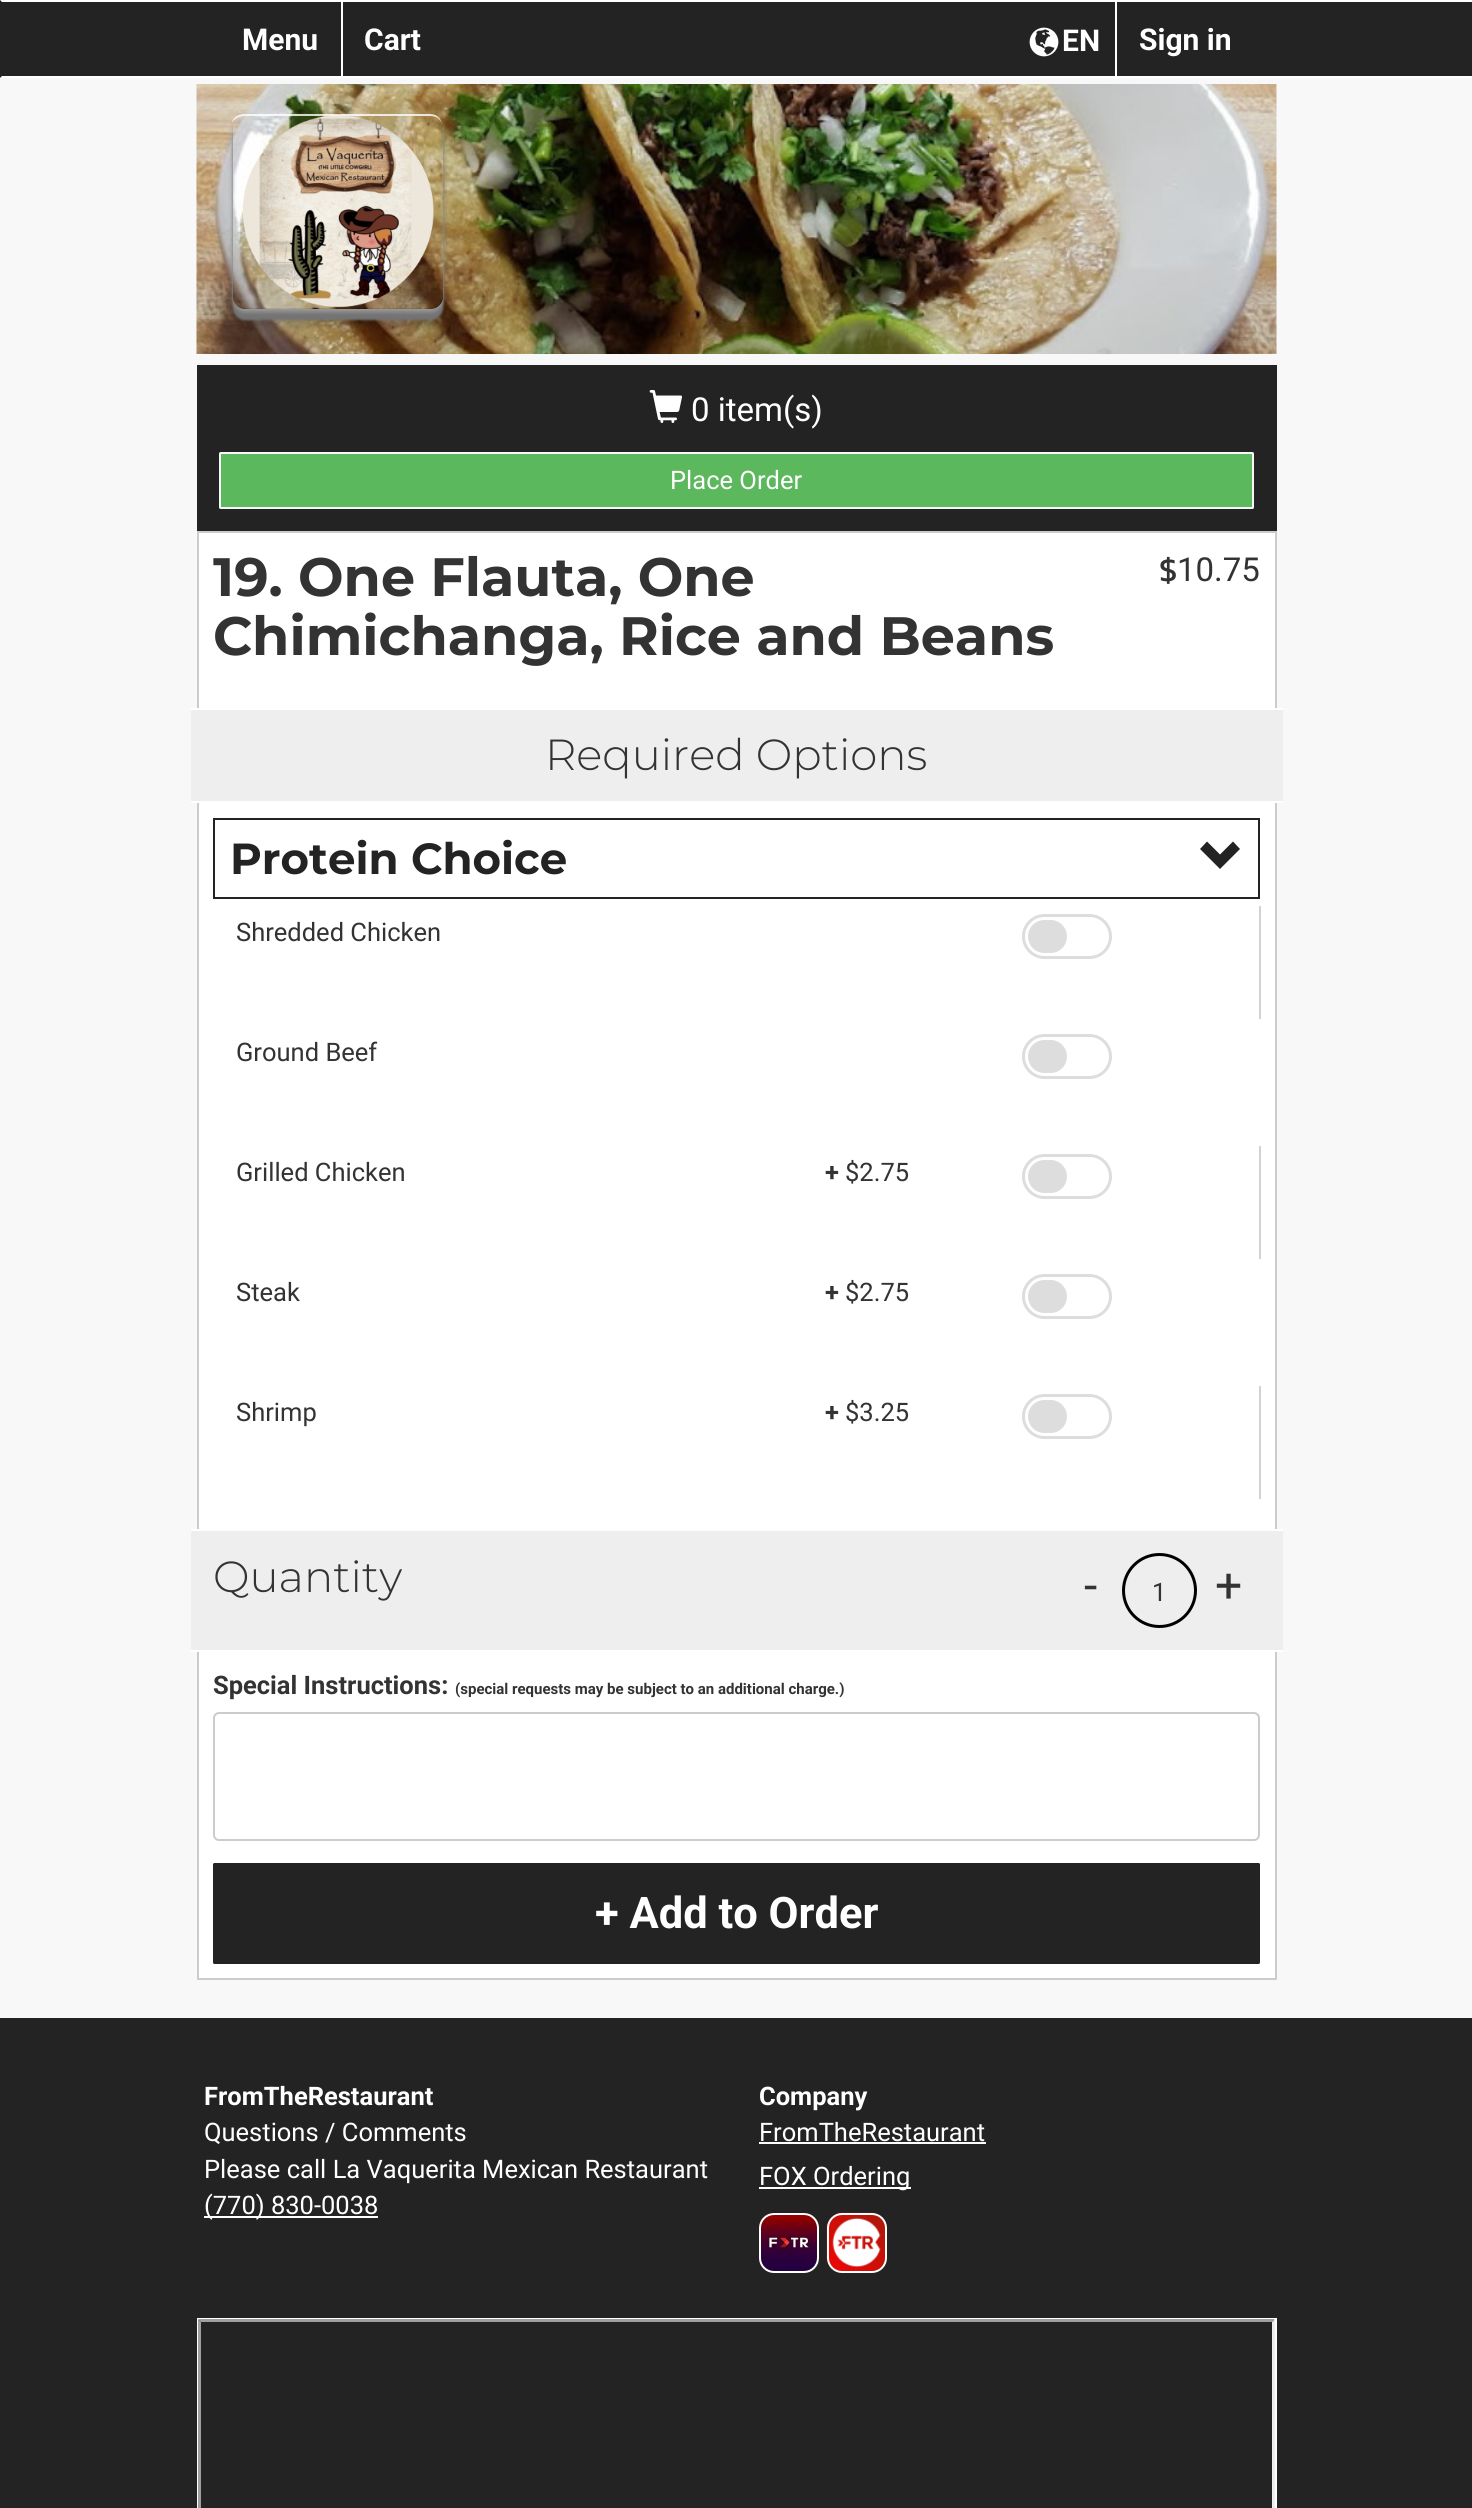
#include <cairo/cairo.h>
#include <math.h>
#include <stddef.h>

static cairo_t *cr;

static void use_color(int r, int g, int b) {
  cairo_set_source_rgb(cr, r / 255.0, g / 255.0, b / 255.0);
}

static void text(double x, double y, const char *s, const char *family, double size, int italic, int bold, int r, int g, int b) {
  cairo_select_font_face(cr, family, italic ? CAIRO_FONT_SLANT_ITALIC : CAIRO_FONT_SLANT_NORMAL,
    bold ? CAIRO_FONT_WEIGHT_BOLD : CAIRO_FONT_WEIGHT_NORMAL);
  cairo_set_font_size(cr, size);
  use_color(r, g, b);
  cairo_move_to(cr, x, y);
  cairo_show_text(cr, s);
}

static void box(double x, double y, double w, double h, int r, int g, int b) {
  use_color(r, g, b);
  cairo_rectangle(cr, x, y, w, h);
  cairo_fill(cr);
}

static void round_rect(double x, double y, double w, double h, double r) {
  cairo_new_sub_path(cr);
  cairo_arc(cr, x + w - r, y + h - r, r, 0, M_PI / 2);
  cairo_arc(cr, x + r, y + h - r, r, M_PI / 2, M_PI);
  cairo_arc(cr, x + r, y + r, r, M_PI, 1.5 * M_PI);
  cairo_arc(cr, x + w - r, y + r, r, 1.5 * M_PI, 2 * M_PI);
  cairo_close_path(cr);
}

static void shadow(double x, double y, double w, double h, double r, double blur, double alpha) {
  cairo_push_group_with_content(cr, CAIRO_CONTENT_ALPHA);
  cairo_set_operator(cr, CAIRO_OPERATOR_SOURCE);
  for (int i = 15; i >= -15 && fmin(w, h) + blur * i / 3 > 0; i -= 2) {
    double e = blur * i / 6;
    cairo_set_source_rgba(cr, 0, 0, 0, alpha * erfc((i - 1) / 8.5) / 2);
    round_rect(x - e, y - e, w + 2 * e, h + 2 * e, fmax(0, fmin(r + e + blur * .6, fmin(w, h) / 2 + e)));
    cairo_fill(cr);
  }
  cairo_pattern_t *soft = cairo_pop_group(cr);
  cairo_mask(cr, soft);
  cairo_pattern_destroy(soft);
}

static void picture(const char *path, double x, double y, double w, double h) {
  cairo_surface_t *image = cairo_image_surface_create_from_png(path);
  cairo_save(cr);
  cairo_set_source_surface(cr, image, x, y);
  cairo_rectangle(cr, x, y, w, h);
  cairo_fill(cr);
  cairo_restore(cr);
  cairo_surface_destroy(image);
}

static void draw(void) {
  use_color(248, 248, 248);
  cairo_paint(cr);
  box(0, 0, 1472, 78, 35, 35, 35);
  use_color(255, 255, 255);
  cairo_new_path(cr);
  cairo_move_to(cr, 0, 0);
  cairo_line_to(cr, 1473, 0);
  cairo_line_to(cr, 1472, 2);
  cairo_line_to(cr, 2, 2);
  cairo_close_path(cr);
  cairo_fill(cr);
  cairo_new_path(cr);
  cairo_move_to(cr, 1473, 78);
  cairo_line_to(cr, 0, 78);
  cairo_line_to(cr, 2, 76);
  cairo_line_to(cr, 1472, 76);
  cairo_close_path(cr);
  cairo_fill(cr);
  box(341, 2, 2, 75, 255, 255, 255);
  picture("img_01.png", 1029, 27, 30, 30);
  box(1115, 2, 2, 75, 255, 255, 255);
  picture("img_02.png", 196, 84, 1081, 270);
  cairo_save(cr);
  cairo_set_fill_rule(cr, CAIRO_FILL_RULE_EVEN_ODD);
  cairo_new_path(cr);
  cairo_move_to(cr, 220, 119);
  cairo_line_to(cr, 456, 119);
  cairo_line_to(cr, 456, 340);
  cairo_line_to(cr, 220, 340);
  cairo_close_path(cr);
  cairo_move_to(cr, 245, 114);
  cairo_line_to(cr, 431, 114);
  cairo_curve_to(cr, 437.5, 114, 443, 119.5, 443, 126);
  cairo_line_to(cr, 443, 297);
  cairo_curve_to(cr, 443, 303.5, 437.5, 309, 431, 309);
  cairo_line_to(cr, 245, 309);
  cairo_curve_to(cr, 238.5, 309, 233, 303.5, 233, 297);
  cairo_line_to(cr, 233, 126);
  cairo_curve_to(cr, 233, 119.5, 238.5, 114, 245, 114);
  cairo_close_path(cr);
  cairo_clip(cr);
  use_color(0, 0, 0);
  shadow(233, 132, 210, 195, 12, 4, 0.2);
  cairo_restore(cr);
  cairo_save(cr);
  cairo_set_fill_rule(cr, CAIRO_FILL_RULE_EVEN_ODD);
  cairo_new_path(cr);
  cairo_move_to(cr, 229, 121);
  cairo_line_to(cr, 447, 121);
  cairo_line_to(cr, 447, 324);
  cairo_line_to(cr, 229, 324);
  cairo_close_path(cr);
  cairo_move_to(cr, 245, 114);
  cairo_line_to(cr, 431, 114);
  cairo_curve_to(cr, 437.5, 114, 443, 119.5, 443, 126);
  cairo_line_to(cr, 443, 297);
  cairo_curve_to(cr, 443, 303.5, 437.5, 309, 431, 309);
  cairo_line_to(cr, 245, 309);
  cairo_curve_to(cr, 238.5, 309, 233, 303.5, 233, 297);
  cairo_line_to(cr, 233, 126);
  cairo_curve_to(cr, 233, 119.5, 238.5, 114, 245, 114);
  cairo_close_path(cr);
  cairo_clip(cr);
  use_color(115, 115, 115);
  shadow(233, 125, 210, 195, 12, 1, 1);
  cairo_restore(cr);
  cairo_save(cr);
  cairo_set_fill_rule(cr, CAIRO_FILL_RULE_EVEN_ODD);
  cairo_new_path(cr);
  cairo_move_to(cr, 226, 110);
  cairo_line_to(cr, 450, 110);
  cairo_line_to(cr, 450, 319);
  cairo_line_to(cr, 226, 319);
  cairo_close_path(cr);
  cairo_move_to(cr, 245, 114);
  cairo_line_to(cr, 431, 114);
  cairo_curve_to(cr, 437.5, 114, 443, 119.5, 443, 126);
  cairo_line_to(cr, 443, 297);
  cairo_curve_to(cr, 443, 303.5, 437.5, 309, 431, 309);
  cairo_line_to(cr, 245, 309);
  cairo_curve_to(cr, 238.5, 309, 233, 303.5, 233, 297);
  cairo_line_to(cr, 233, 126);
  cairo_curve_to(cr, 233, 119.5, 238.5, 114, 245, 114);
  cairo_close_path(cr);
  cairo_clip(cr);
  use_color(153, 153, 153);
  shadow(233, 117, 210, 195, 12, 2, 1);
  cairo_restore(cr);
  picture("img_03.png", 243, 115, 191, 193);
  cairo_set_source_rgba(cr, 1, 1, 1, 0.8);
  cairo_new_path(cr);
  cairo_move_to(cr, 244, 114);
  cairo_curve_to(cr, 239, 114, 232, 118, 232, 123);
  cairo_curve_to(cr, 234, 119, 239, 116, 244, 116);
  cairo_line_to(cr, 430, 116);
  cairo_curve_to(cr, 437, 116, 442, 120, 442, 126);
  cairo_curve_to(cr, 442, 119, 437, 114, 430, 114);
  cairo_close_path(cr);
  cairo_fill(cr);
  cairo_set_source_rgba(cr, 0, 0, 0, 0.1);
  cairo_new_path(cr);
  cairo_move_to(cr, 430, 309);
  cairo_curve_to(cr, 437, 309, 442, 304, 442, 297);
  cairo_curve_to(cr, 442, 303, 437, 308, 430, 308);
  cairo_line_to(cr, 244, 308);
  cairo_curve_to(cr, 239, 308, 234, 305, 232, 300);
  cairo_curve_to(cr, 234, 306, 239, 309, 244, 309);
  cairo_close_path(cr);
  cairo_fill(cr);
  box(197, 365, 1080, 166, 35, 35, 35);
  picture("img_04.png", 649, 390, 33, 33);
  use_color(92, 184, 92);
  round_rect(220, 453, 1033, 55, 0.5);
  cairo_fill_preserve(cr);
  use_color(248, 248, 248);
  cairo_stroke(cr);
  use_color(255, 255, 255);
  cairo_rectangle(cr, 198, 532, 1078, 1447);
  cairo_fill_preserve(cr);
  use_color(204, 204, 204);
  cairo_stroke(cr);
  box(191, 710, 1092, 91, 238, 238, 238);
  box(191, 708, 1092, 2, 255, 255, 255);
  box(191, 801, 1092, 2, 255, 255, 255);
  cairo_rectangle(cr, 214, 819, 1045, 79);
  use_color(35, 35, 35);
  cairo_stroke(cr);
  cairo_new_path(cr);
  cairo_move_to(cr, 1240, 849);
  cairo_line_to(cr, 1220, 869);
  cairo_line_to(cr, 1200, 849);
  cairo_line_to(cr, 1207, 841.5);
  cairo_line_to(cr, 1220, 854.5);
  cairo_line_to(cr, 1233, 841.5);
  cairo_close_path(cr);
  cairo_fill(cr);
  box(1259, 906, 2, 113, 211, 211, 211);
  use_color(221, 221, 221);
  round_rect(1022, 914, 90, 45, 22.5);
  cairo_fill(cr);
  use_color(255, 255, 255);
  round_rect(1025, 917, 84, 39, 19.5);
  cairo_fill(cr);
  use_color(221, 221, 221);
  round_rect(1028, 920, 39, 33, 16.5);
  cairo_fill(cr);
  round_rect(1022, 1034, 90, 45, 22.5);
  cairo_fill(cr);
  use_color(255, 255, 255);
  round_rect(1025, 1037, 84, 39, 19.5);
  cairo_fill(cr);
  use_color(221, 221, 221);
  round_rect(1028, 1040, 39, 33, 16.5);
  cairo_fill(cr);
  box(1259, 1146, 2, 113, 211, 211, 211);
  use_color(221, 221, 221);
  round_rect(1022, 1154, 90, 45, 22.5);
  cairo_fill(cr);
  use_color(255, 255, 255);
  round_rect(1025, 1157, 84, 39, 19.5);
  cairo_fill(cr);
  use_color(221, 221, 221);
  round_rect(1028, 1160, 39, 33, 16.5);
  cairo_fill(cr);
  round_rect(1022, 1274, 90, 45, 22.5);
  cairo_fill(cr);
  use_color(255, 255, 255);
  round_rect(1025, 1277, 84, 39, 19.5);
  cairo_fill(cr);
  use_color(221, 221, 221);
  round_rect(1028, 1280, 39, 33, 16.5);
  cairo_fill(cr);
  box(1259, 1386, 2, 113, 211, 211, 211);
  use_color(221, 221, 221);
  round_rect(1022, 1394, 90, 45, 22.5);
  cairo_fill(cr);
  use_color(255, 255, 255);
  round_rect(1025, 1397, 84, 39, 19.5);
  cairo_fill(cr);
  use_color(221, 221, 221);
  round_rect(1028, 1400, 39, 33, 16.5);
  cairo_fill(cr);
  box(191, 1531, 1092, 119, 238, 238, 238);
  box(191, 1529, 1092, 2, 255, 255, 255);
  box(191, 1650, 1092, 2, 255, 255, 255);
  cairo_arc(cr, 1159.5, 1590.5, 36, 0, 2 * M_PI);
  use_color(0, 0, 0);
  cairo_set_line_width(cr, 3);
  cairo_stroke(cr);
  use_color(236, 236, 236);
  cairo_new_path(cr);
  cairo_move_to(cr, 219, 1714);
  cairo_line_to(cr, 1254, 1714);
  cairo_curve_to(cr, 1256, 1714, 1258, 1717, 1258, 1719);
  cairo_line_to(cr, 1258, 1837);
  cairo_curve_to(cr, 1259, 1836, 1259, 1835, 1259, 1834);
  cairo_line_to(cr, 1259, 1718);
  cairo_curve_to(cr, 1259, 1715, 1257, 1713, 1254, 1713);
  cairo_line_to(cr, 220, 1713);
  cairo_curve_to(cr, 218, 1713, 216, 1714, 215, 1716);
  cairo_curve_to(cr, 216, 1715, 218, 1714, 219, 1714);
  cairo_close_path(cr);
  cairo_fill(cr);
  round_rect(214, 1713, 1045, 127, 5);
  use_color(204, 204, 204);
  cairo_set_line_width(cr, 2);
  cairo_stroke(cr);
  use_color(35, 35, 35);
  round_rect(213, 1863, 1047, 101, 1.5);
  cairo_fill(cr);
  box(0, 2018, 1472, 490, 35, 35, 35);
  box(204, 2216, 174, 2, 255, 255, 255);
  box(759, 2142, 227, 2, 255, 255, 255);
  box(759, 2187, 152, 2, 255, 255, 255);
  picture("img_05.png", 759, 2212, 60, 61);
  round_rect(760, 2214, 58, 58, 14);
  cairo_stroke(cr);
  picture("img_06.png", 826, 2212, 61, 61);
  round_rect(828, 2214, 58, 58, 14);
  cairo_stroke(cr);
  cairo_rectangle(cr, 198, 2319, 1078, 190);
  cairo_stroke(cr);
  use_color(159, 159, 159);
  cairo_new_path(cr);
  cairo_move_to(cr, 198, 2319);
  cairo_line_to(cr, 1275, 2319);
  cairo_line_to(cr, 1272, 2322);
  cairo_line_to(cr, 201, 2322);
  cairo_close_path(cr);
  cairo_fill(cr);
  cairo_new_path(cr);
  cairo_move_to(cr, 198, 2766);
  cairo_line_to(cr, 198, 2319);
  cairo_line_to(cr, 201, 2322);
  cairo_line_to(cr, 201, 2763);
  cairo_close_path(cr);
  cairo_fill(cr);
  use_color(238, 238, 238);
  cairo_new_path(cr);
  cairo_move_to(cr, 1275, 2319);
  cairo_line_to(cr, 1275, 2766);
  cairo_line_to(cr, 1272, 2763);
  cairo_line_to(cr, 1272, 2322);
  cairo_close_path(cr);
  cairo_fill(cr);
  text(242, 50, "Menu", "Roboto", 30, 0, 1, 255, 255, 255);
  text(364, 50, "Cart", "Roboto", 30, 0, 1, 255, 255, 255);
  text(1062, 51, "EN", "Roboto", 30, 0, 1, 255, 255, 255);
  text(1139, 50, "Sign in", "Roboto", 30, 0, 1, 255, 255, 255);
  text(691, 421, "0 item(s)", "Roboto", 33, 0, 0, 255, 255, 255);
  text(670, 489, "Place Order", "Roboto", 25.5, 0, 0, 255, 255, 255);
  text(213, 596, "19. One Flauta, One", "Montserrat", 54, 0, 1, 51, 51, 51);
  text(213, 655, "Chimichanga, Rice and Beans", "Montserrat", 54, 0, 1, 51, 51, 51);
  text(1159, 581, "$", "Kanit", 33, 0, 0, 51, 51, 51);
  text(1177, 581, "10.75", "Roboto", 33, 0, 0, 51, 51, 51);
  text(545, 770, "Required Options", "Montserrat Light", 43.5, 0, 0, 51, 51, 51);
  text(230, 874, "Protein Choice", "Montserrat", 43.5, 0, 1, 35, 35, 35);
  text(236, 941, "Shredded Chicken", "Roboto", 25.5, 0, 0, 51, 51, 51);
  text(236, 1061, "Ground Beef", "Roboto", 25.5, 0, 0, 51, 51, 51);
  text(236, 1181, "Grilled Chicken", "Roboto", 25.5, 0, 0, 51, 51, 51);
  text(825, 1181, "+", "Roboto", 25.5, 0, 1, 51, 51, 51);
  text(845, 1181, "$2.75", "Roboto", 25.5, 0, 0, 51, 51, 51);
  text(236, 1301, "Steak", "Roboto", 25.5, 0, 0, 51, 51, 51);
  text(825, 1301, "+", "Roboto", 25.5, 0, 1, 51, 51, 51);
  text(845, 1301, "$2.75", "Roboto", 25.5, 0, 0, 51, 51, 51);
  text(236, 1421, "Shrimp", "Roboto", 25.5, 0, 0, 51, 51, 51);
  text(825, 1421, "+", "Roboto", 25.5, 0, 1, 51, 51, 51);
  text(845, 1421, "$3.25", "Roboto", 25.5, 0, 0, 51, 51, 51);
  text(213, 1592, "Quantity", "Montserrat Light", 43.5, 0, 0, 51, 51, 51);
  text(1084, 1602, "-", "Roboto", 48, 0, 0, 51, 51, 51);
  text(1152, 1601, "1", "Roboto", 25.5, 0, 0, 51, 51, 51);
  text(1215, 1602, "+", "Roboto", 48, 0, 0, 51, 51, 51);
  text(213, 1694, "Special Instructions:", "Roboto", 25.5, 0, 1, 51, 51, 51);
  text(455, 1694, "(special requests may be subject to an additional charge.)", "Roboto", 15, 0, 1, 51, 51, 51);
  text(595, 1928, "+ Add to Order", "Roboto", 43.5, 0, 1, 255, 255, 255);
  text(204, 2105, "FromTheRestaurant", "Roboto", 25.5, 0, 1, 255, 255, 255);
  text(204, 2141, "Questions / Comments", "Roboto", 25.5, 0, 0, 255, 255, 255);
  text(204, 2178, "Please call La Vaquerita Mexican Restaurant", "Roboto", 25.5, 0, 0, 255, 255, 255);
  text(204, 2214, "(770) 830-0038", "Roboto", 25.5, 0, 0, 255, 255, 255);
  text(759, 2105, "Company", "Roboto", 25.5, 0, 1, 255, 255, 255);
  text(759, 2141, "FromTheRestaurant", "Roboto", 25.5, 0, 0, 255, 255, 255);
  text(759, 2185, "FOX Ordering", "Roboto", 25.5, 0, 0, 255, 255, 255);
}

int main(void) {
  cairo_surface_t *surface = cairo_image_surface_create(CAIRO_FORMAT_RGB24, 1472, 2508);
  cr = cairo_create(surface);
  cairo_font_options_t *options = cairo_font_options_create();
  cairo_font_options_set_hint_metrics(options, CAIRO_HINT_METRICS_OFF);
  cairo_font_options_set_hint_style(options, CAIRO_HINT_STYLE_NONE);
  cairo_set_font_options(cr, options);
  cairo_set_miter_limit(cr, 4);
  draw();
  cairo_surface_write_to_png(surface, "out.png");
  cairo_font_options_destroy(options);
  cairo_destroy(cr);
  cairo_surface_destroy(surface);
  return 0;
}
